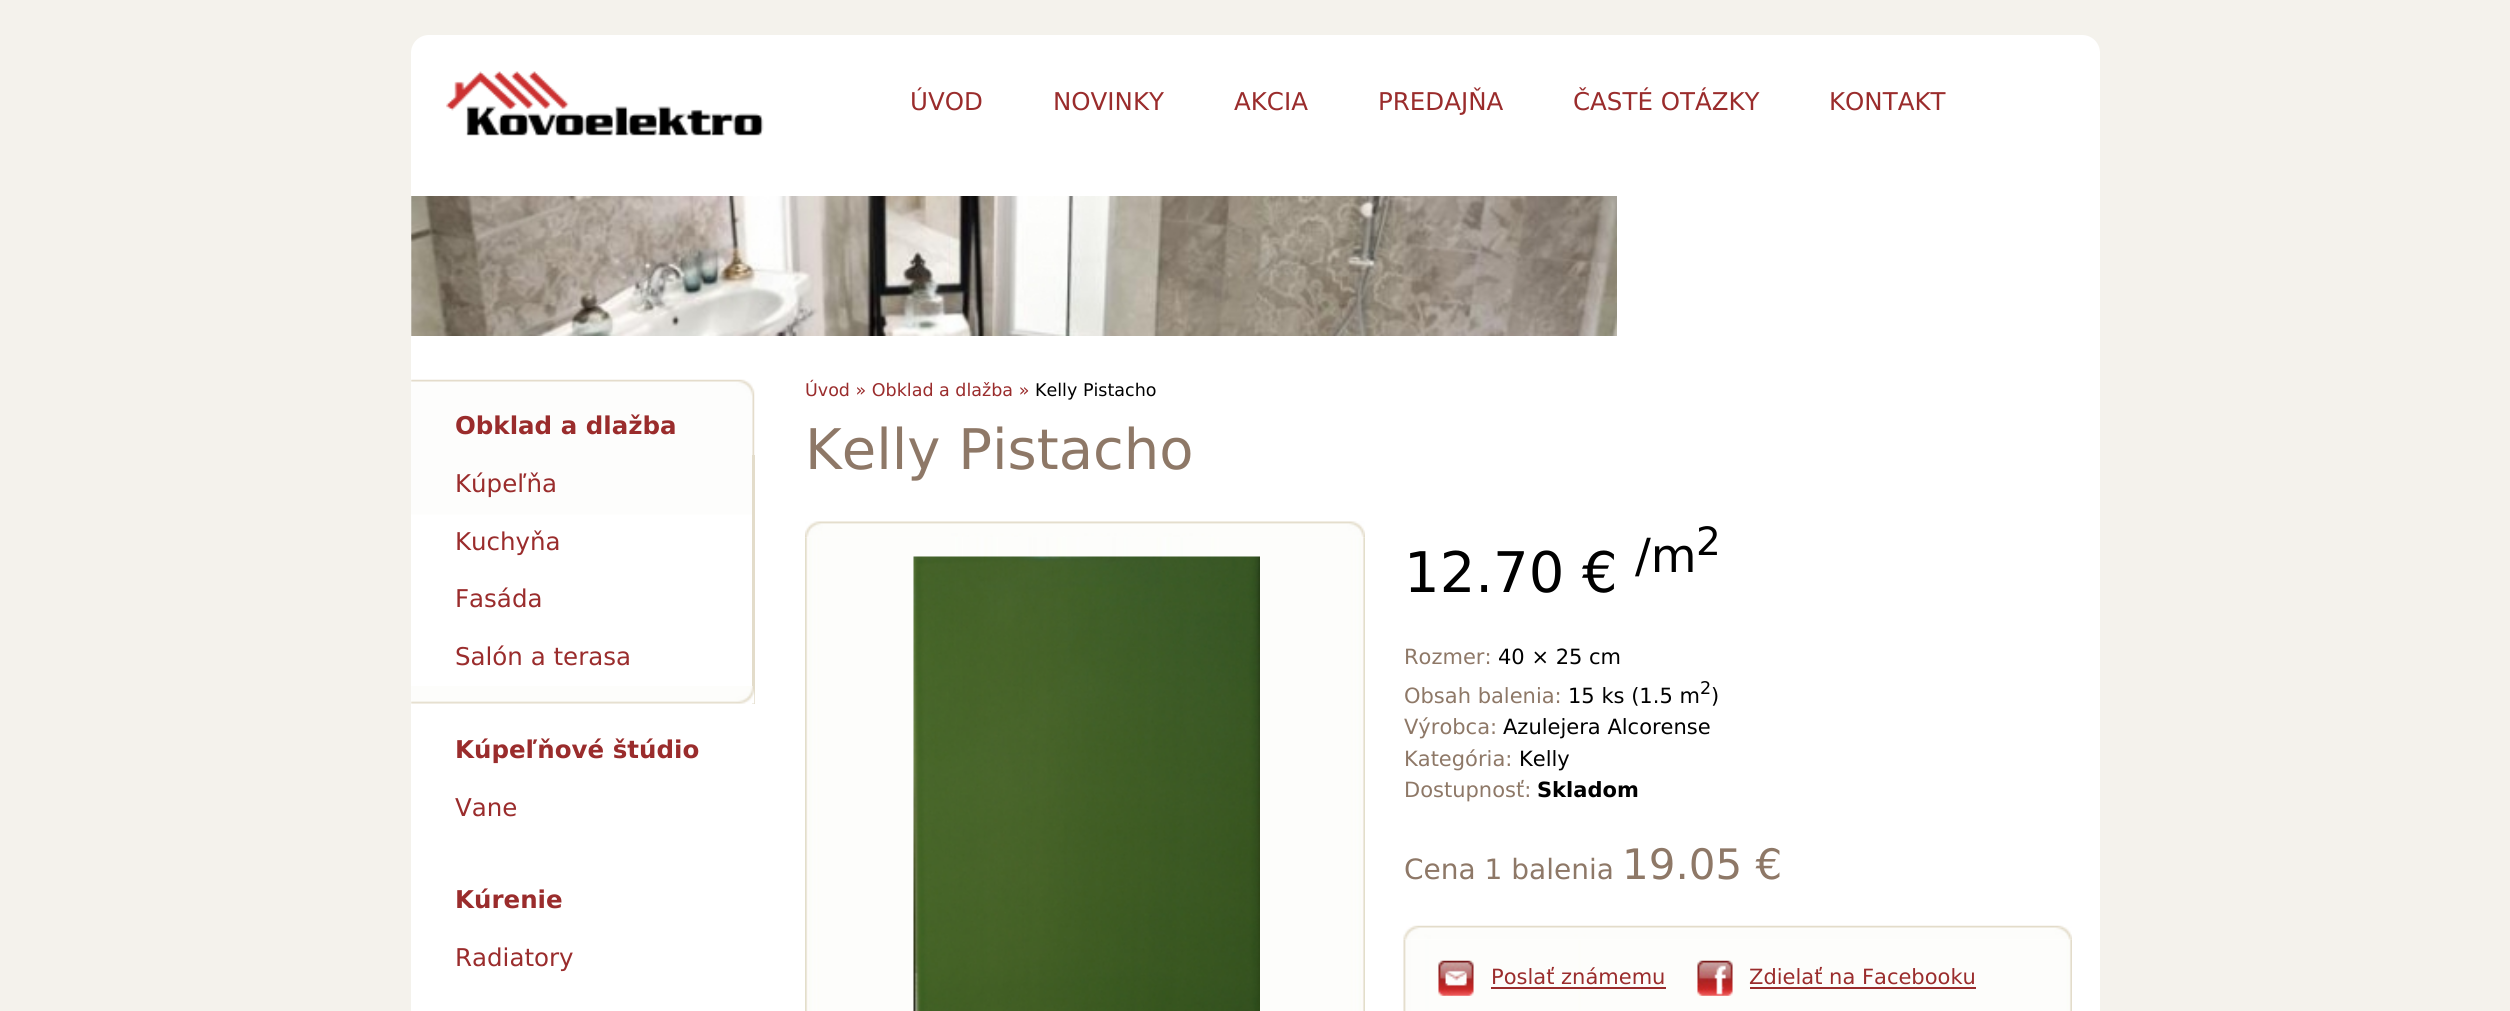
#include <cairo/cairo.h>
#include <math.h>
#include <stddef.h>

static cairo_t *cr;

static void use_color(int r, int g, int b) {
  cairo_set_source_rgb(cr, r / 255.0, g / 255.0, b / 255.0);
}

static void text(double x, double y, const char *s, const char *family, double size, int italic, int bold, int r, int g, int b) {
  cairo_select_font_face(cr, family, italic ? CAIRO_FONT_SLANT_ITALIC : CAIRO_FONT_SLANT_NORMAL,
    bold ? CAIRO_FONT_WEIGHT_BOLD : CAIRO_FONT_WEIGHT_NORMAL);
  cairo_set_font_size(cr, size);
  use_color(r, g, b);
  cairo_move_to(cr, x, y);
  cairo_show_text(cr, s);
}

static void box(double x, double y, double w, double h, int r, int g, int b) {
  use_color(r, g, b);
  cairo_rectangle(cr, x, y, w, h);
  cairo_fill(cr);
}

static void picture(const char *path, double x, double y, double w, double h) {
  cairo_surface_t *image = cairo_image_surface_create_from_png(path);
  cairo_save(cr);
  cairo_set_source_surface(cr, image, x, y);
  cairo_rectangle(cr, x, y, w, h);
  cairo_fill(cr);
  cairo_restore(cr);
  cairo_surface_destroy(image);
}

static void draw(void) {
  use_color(244, 242, 236);
  cairo_paint(cr);
  use_color(255, 255, 255);
  cairo_new_path(cr);
  cairo_move_to(cr, 429, 35);
  cairo_line_to(cr, 2082, 35);
  cairo_curve_to(cr, 2092, 35, 2100, 43, 2100, 53);
  cairo_line_to(cr, 2100, 196);
  cairo_line_to(cr, 411, 196);
  cairo_line_to(cr, 411, 53);
  cairo_curve_to(cr, 411, 43, 419, 35, 429, 35);
  cairo_close_path(cr);
  cairo_fill(cr);
  picture("img_01.png", 446, 71, 318, 65);
  box(411, 196, 1689, 815, 255, 255, 255);
  picture("img_02.png", 411, 196, 1206, 140);
  picture("img_03.png", 411, 379, 344, 136);
  box(752, 455, 3, 249, 227, 220, 202);
  picture("img_04.png", 411, 686, 344, 18);
  picture("img_05.png", 805, 521, 560, 17);
  picture("img_06.png", 805, 537, 560, 474);
  picture("img_07.png", 913, 556, 347, 455);
  picture("img_08.png", 1403, 925, 669, 15);
  picture("img_09.png", 1403, 939, 669, 72);
  picture("img_10.png", 1438, 960, 36, 36);
  box(1491, 987, 175, 2, 154, 44, 44);
  picture("img_11.png", 1697, 960, 36, 36);
  box(1750, 987, 226, 2, 154, 44, 44);
  text(910, 110, "ÚVOD", "DejaVu Sans", 24.5, 0, 0, 154, 44, 44);
  text(1053, 110, "NOVINKY", "DejaVu Sans", 24.5, 0, 0, 154, 44, 44);
  text(1234, 110, "AKCIA", "DejaVu Sans", 24.5, 0, 0, 154, 44, 44);
  text(1378, 110, "PREDAJŇA", "DejaVu Sans", 24.5, 0, 0, 154, 44, 44);
  text(1573, 110, "ČASTÉ OTÁZKY", "DejaVu Sans", 24.5, 0, 0, 154, 44, 44);
  text(1829, 110, "KONTAKT", "DejaVu Sans", 24.5, 0, 0, 154, 44, 44);
  text(455, 434, "Obklad a dlažba", "DejaVu Sans", 24.5, 0, 1, 154, 44, 44);
  text(455, 492, "Kúpeľňa", "DejaVu Sans", 24.5, 0, 0, 154, 44, 44);
  text(455, 550, "Kuchyňa", "DejaVu Sans", 24.5, 0, 0, 154, 44, 44);
  text(455, 607, "Fasáda", "DejaVu Sans", 24.5, 0, 0, 154, 44, 44);
  text(455, 665, "Salón a terasa", "DejaVu Sans", 24.5, 0, 0, 154, 44, 44);
  text(455, 758, "Kúpeľňové štúdio", "DejaVu Sans", 24.5, 0, 1, 154, 44, 44);
  text(455, 816, "Vane", "DejaVu Sans", 24.5, 0, 0, 154, 44, 44);
  text(455, 908, "Kúrenie", "DejaVu Sans", 24.5, 0, 1, 154, 44, 44);
  text(455, 966, "Radiatory", "DejaVu Sans", 24.5, 0, 0, 154, 44, 44);
  text(805, 396, "Úvod » Obklad a dlažba »", "DejaVu Sans", 17.5, 0, 0, 154, 44, 44);
  text(1035, 396, "Kelly Pistacho", "DejaVu Sans", 17.5, 0, 0, 0, 0, 0);
  text(805, 469, "Kelly Pistacho", "DejaVu Sans", 56, 0, 0, 142, 120, 103);
  text(1404, 592, "12.70 €", "DejaVu Sans", 56, 0, 0, 0, 0, 0);
  text(1635, 572, "/m", "DejaVu Sans", 47, 0, 0, 0, 0, 0);
  text(1696, 555, "2", "DejaVu Sans", 39, 0, 0, 0, 0, 0);
  text(1404, 664, "Rozmer:", "DejaVu Sans", 21, 0, 0, 142, 120, 103);
  text(1498, 664, "40 × 25 cm", "DejaVu Sans", 21, 0, 0, 0, 0, 0);
  text(1404, 703, "Obsah balenia:", "DejaVu Sans", 21, 0, 0, 142, 120, 103);
  text(1568, 703, "15 ks (1.5 m", "DejaVu Sans", 21, 0, 0, 0, 0, 0);
  text(1700, 694, "2", "DejaVu Sans", 17.5, 0, 0, 0, 0, 0);
  text(1711, 703, ")", "DejaVu Sans", 21, 0, 0, 0, 0, 0);
  text(1404, 734, "Výrobca:", "DejaVu Sans", 21, 0, 0, 142, 120, 103);
  text(1503, 734, "Azulejera Alcorense", "DejaVu Sans", 21, 0, 0, 0, 0, 0);
  text(1404, 766, "Kategória:", "DejaVu Sans", 21, 0, 0, 142, 120, 103);
  text(1519, 766, "Kelly", "DejaVu Sans", 21, 0, 0, 0, 0, 0);
  text(1404, 797, "Dostupnosť:", "DejaVu Sans", 21, 0, 0, 142, 120, 103);
  text(1537, 797, "Skladom", "DejaVu Sans", 21, 0, 1, 0, 0, 0);
  text(1404, 879, "Cena 1 balenia", "DejaVu Sans", 28, 0, 0, 142, 120, 103);
  text(1622, 879, "19.05 €", "DejaVu Sans", 42, 0, 0, 142, 120, 103);
  text(1491, 984, "Poslať známemu", "DejaVu Sans", 21, 0, 0, 154, 44, 44);
  text(1749, 984, "Zdielať na Facebooku", "DejaVu Sans", 21, 0, 0, 154, 44, 44);
}

int main(void) {
  cairo_surface_t *surface = cairo_image_surface_create(CAIRO_FORMAT_RGB24, 2510, 1011);
  cr = cairo_create(surface);
  cairo_font_options_t *options = cairo_font_options_create();
  cairo_font_options_set_hint_metrics(options, CAIRO_HINT_METRICS_OFF);
  cairo_font_options_set_hint_style(options, CAIRO_HINT_STYLE_NONE);
  cairo_set_font_options(cr, options);
  cairo_set_miter_limit(cr, 4);
  draw();
  cairo_surface_write_to_png(surface, "out.png");
  cairo_font_options_destroy(options);
  cairo_destroy(cr);
  cairo_surface_destroy(surface);
  return 0;
}
